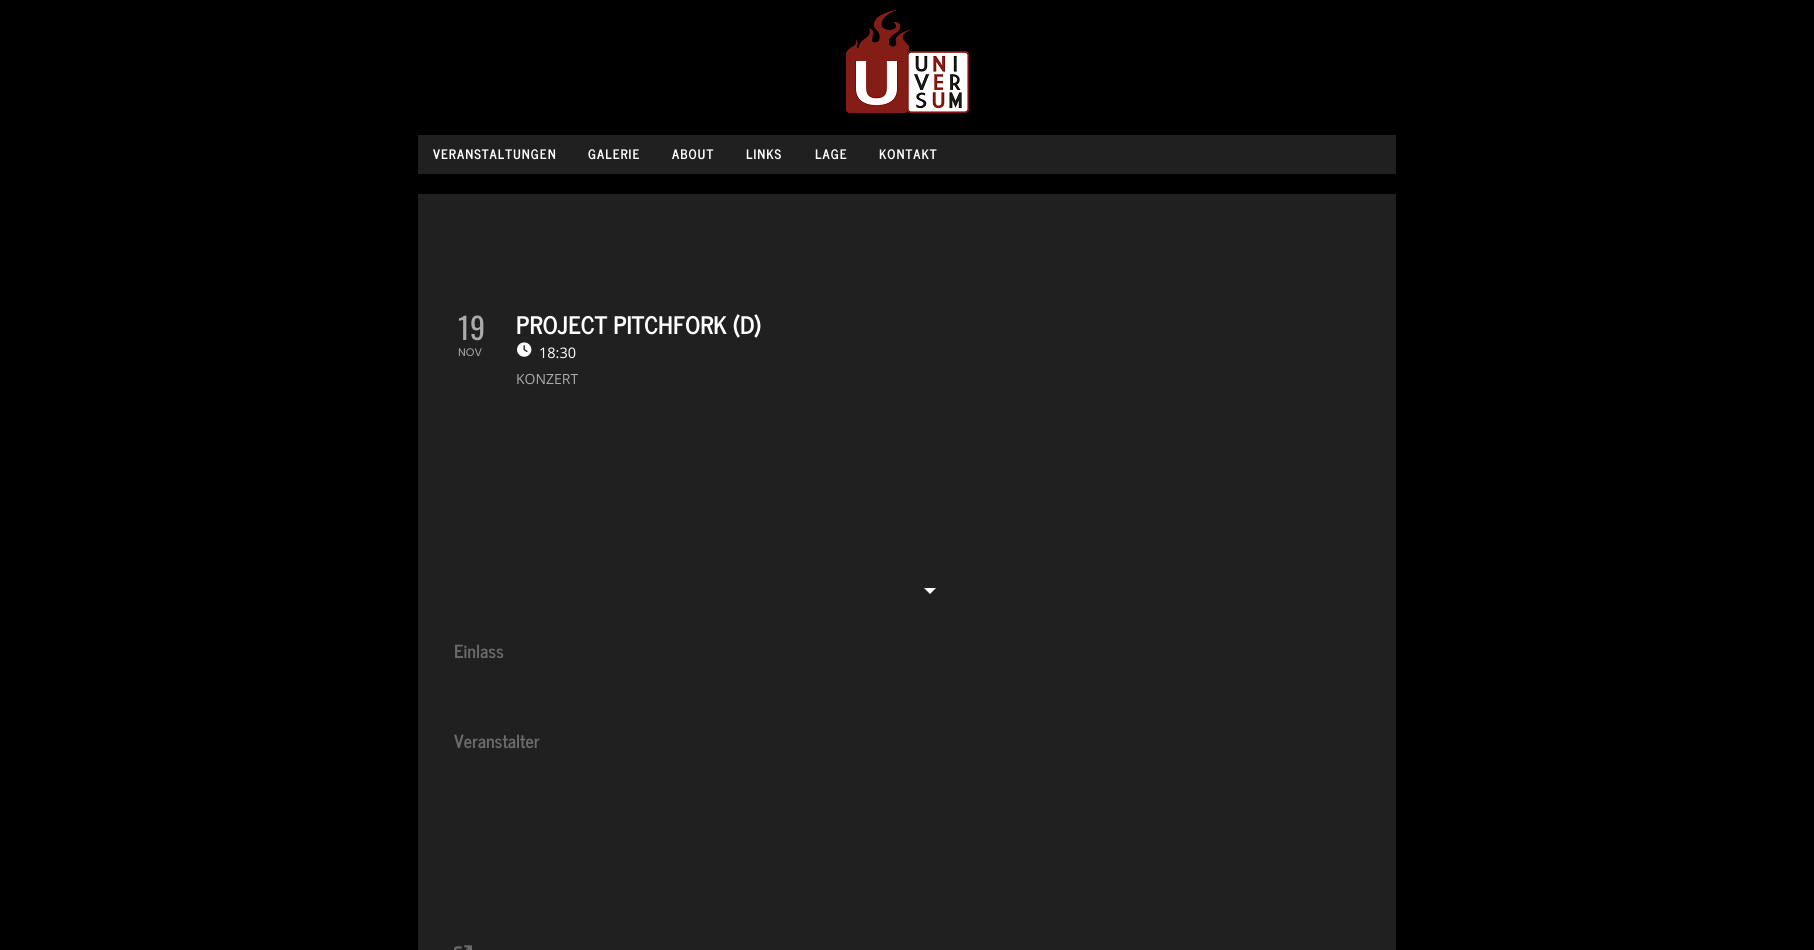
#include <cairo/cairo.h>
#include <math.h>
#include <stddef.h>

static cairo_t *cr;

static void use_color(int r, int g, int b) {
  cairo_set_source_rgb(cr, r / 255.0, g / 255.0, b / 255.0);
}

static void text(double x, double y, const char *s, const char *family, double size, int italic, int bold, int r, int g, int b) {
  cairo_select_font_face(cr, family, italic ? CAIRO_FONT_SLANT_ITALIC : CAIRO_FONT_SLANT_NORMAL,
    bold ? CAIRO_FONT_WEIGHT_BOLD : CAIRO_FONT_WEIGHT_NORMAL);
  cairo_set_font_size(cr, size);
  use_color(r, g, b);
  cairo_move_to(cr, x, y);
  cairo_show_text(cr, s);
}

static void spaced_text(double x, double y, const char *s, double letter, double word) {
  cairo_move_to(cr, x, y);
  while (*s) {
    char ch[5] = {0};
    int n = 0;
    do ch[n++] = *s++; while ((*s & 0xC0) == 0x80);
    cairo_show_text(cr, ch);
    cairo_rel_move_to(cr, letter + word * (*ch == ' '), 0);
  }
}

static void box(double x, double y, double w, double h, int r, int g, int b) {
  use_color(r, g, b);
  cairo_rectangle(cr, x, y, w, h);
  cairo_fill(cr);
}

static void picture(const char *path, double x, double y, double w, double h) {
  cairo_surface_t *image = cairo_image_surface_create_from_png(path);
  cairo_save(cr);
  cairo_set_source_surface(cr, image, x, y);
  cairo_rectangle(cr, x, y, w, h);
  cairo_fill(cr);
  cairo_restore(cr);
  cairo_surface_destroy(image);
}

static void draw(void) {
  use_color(0, 0, 0);
  cairo_paint(cr);
  picture("img_01.png", 846, 10, 123, 103);
  box(418, 135, 978, 39, 32, 32, 32);
  box(418, 194, 978, 756, 32, 32, 32);
  picture("img_02.png", 517, 342, 15, 15);
  use_color(255, 255, 255);
  cairo_new_path(cr);
  cairo_move_to(cr, 924, 588);
  cairo_line_to(cr, 936, 588);
  cairo_line_to(cr, 930, 594);
  cairo_close_path(cr);
  cairo_fill(cr);
  picture("img_03.png", 454, 945, 18, 5);
  cairo_select_font_face(cr, "News Cycle", CAIRO_FONT_SLANT_NORMAL, CAIRO_FONT_WEIGHT_BOLD);
  cairo_set_font_size(cr, 13);
  spaced_text(433, 159, "VERANSTALTUNGEN", 1, 0);
  spaced_text(588, 159, "GALERIE", 1, 0);
  spaced_text(672, 159, "ABOUT", 1, 0);
  spaced_text(746, 159, "LINKS", 1, 0);
  spaced_text(815, 159, "LAGE", 1, 0);
  spaced_text(879, 159, "KONTAKT", 1, 0);
  text(458, 340, "19", "Oswald", 30, 0, 0, 171, 171, 171);
  text(458, 356, "NOV", "Poppins", 11, 0, 0, 171, 171, 171);
  text(516, 334, "PROJECT PITCHFORK (D)", "News Cycle", 24, 0, 1, 255, 255, 255);
  text(539, 358, "18:30", "Open Sans", 14.5, 0, 0, 255, 255, 255);
  text(516, 384, "KONZERT", "Open Sans", 14, 0, 0, 171, 171, 171);
  text(454, 658, "Einlass", "News Cycle", 18, 0, 1, 107, 107, 107);
  text(454, 748, "Veranstalter", "News Cycle", 18, 0, 1, 107, 107, 107);
}

int main(void) {
  cairo_surface_t *surface = cairo_image_surface_create(CAIRO_FORMAT_RGB24, 1814, 950);
  cr = cairo_create(surface);
  cairo_font_options_t *options = cairo_font_options_create();
  cairo_font_options_set_hint_metrics(options, CAIRO_HINT_METRICS_OFF);
  cairo_font_options_set_hint_style(options, CAIRO_HINT_STYLE_NONE);
  cairo_set_font_options(cr, options);
  cairo_set_miter_limit(cr, 4);
  draw();
  cairo_surface_write_to_png(surface, "out.png");
  cairo_font_options_destroy(options);
  cairo_destroy(cr);
  cairo_surface_destroy(surface);
  return 0;
}
